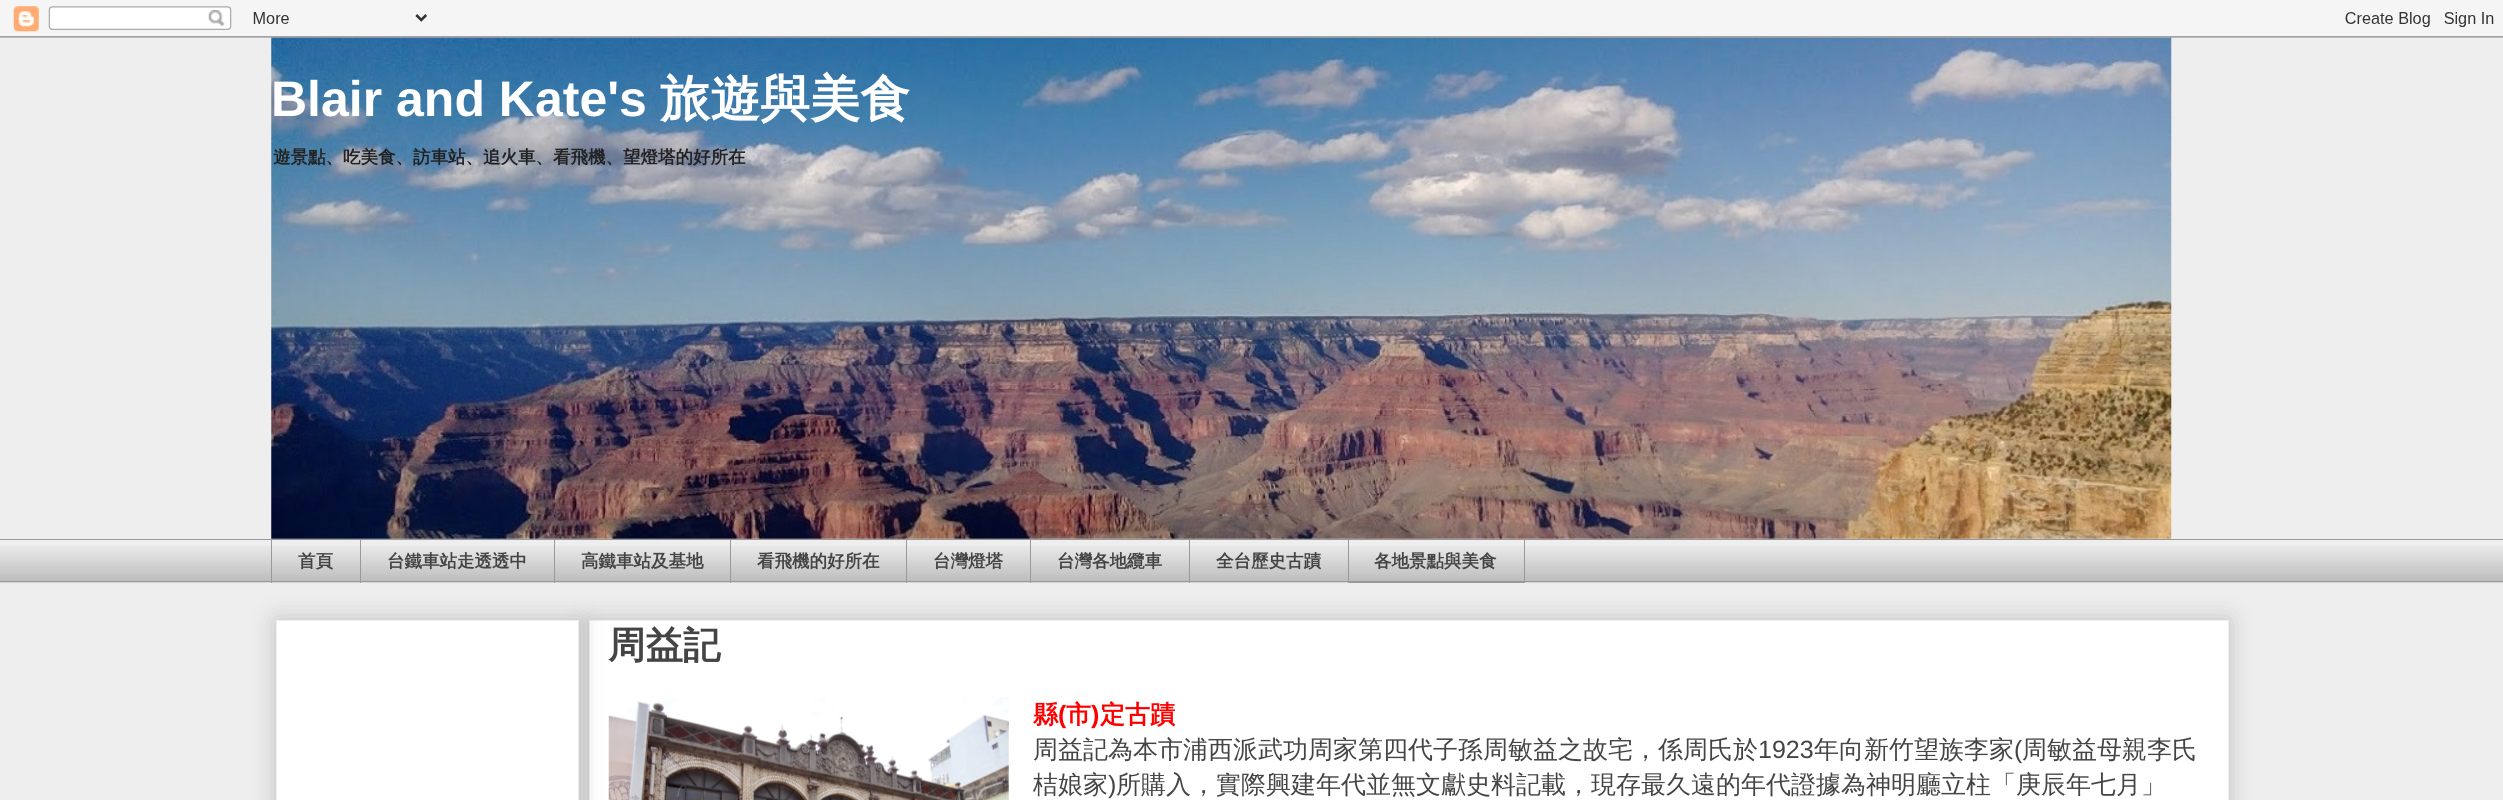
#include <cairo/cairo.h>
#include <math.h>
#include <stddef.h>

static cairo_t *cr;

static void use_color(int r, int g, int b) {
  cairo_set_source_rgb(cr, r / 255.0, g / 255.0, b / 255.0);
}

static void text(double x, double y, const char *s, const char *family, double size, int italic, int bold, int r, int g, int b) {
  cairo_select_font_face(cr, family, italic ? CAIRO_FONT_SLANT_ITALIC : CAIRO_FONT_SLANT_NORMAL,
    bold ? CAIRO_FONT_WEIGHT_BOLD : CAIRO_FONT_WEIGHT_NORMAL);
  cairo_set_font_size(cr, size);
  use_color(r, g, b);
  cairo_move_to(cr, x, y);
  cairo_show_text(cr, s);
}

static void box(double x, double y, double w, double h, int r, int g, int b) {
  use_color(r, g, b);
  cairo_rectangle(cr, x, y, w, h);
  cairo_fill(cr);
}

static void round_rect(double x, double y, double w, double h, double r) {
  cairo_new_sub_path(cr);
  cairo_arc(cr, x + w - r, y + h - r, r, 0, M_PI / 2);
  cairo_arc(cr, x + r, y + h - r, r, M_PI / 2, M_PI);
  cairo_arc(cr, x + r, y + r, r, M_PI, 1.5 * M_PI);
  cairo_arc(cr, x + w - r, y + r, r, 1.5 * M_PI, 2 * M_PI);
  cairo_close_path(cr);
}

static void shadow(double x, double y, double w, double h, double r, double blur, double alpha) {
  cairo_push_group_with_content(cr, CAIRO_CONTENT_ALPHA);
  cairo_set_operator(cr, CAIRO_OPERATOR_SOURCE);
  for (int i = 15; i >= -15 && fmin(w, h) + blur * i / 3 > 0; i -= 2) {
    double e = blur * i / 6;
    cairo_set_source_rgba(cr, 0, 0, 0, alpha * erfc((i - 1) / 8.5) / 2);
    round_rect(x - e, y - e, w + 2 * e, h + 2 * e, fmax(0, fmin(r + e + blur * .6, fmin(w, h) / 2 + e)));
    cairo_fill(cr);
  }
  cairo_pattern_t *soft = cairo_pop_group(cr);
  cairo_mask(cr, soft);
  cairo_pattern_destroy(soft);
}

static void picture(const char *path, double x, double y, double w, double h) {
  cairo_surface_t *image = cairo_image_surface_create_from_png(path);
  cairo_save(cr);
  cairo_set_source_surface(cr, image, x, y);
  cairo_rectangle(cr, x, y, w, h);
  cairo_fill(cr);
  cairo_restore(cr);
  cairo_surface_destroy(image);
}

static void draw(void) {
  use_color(238, 238, 238);
  cairo_paint(cr);
  picture("img_02.png", 271, 37, 1901, 502);
  picture("img_01.png", 0, 0, 2503, 38);
  picture("img_03.png", 0, 546, 2503, 37);
  box(0, 539, 2503, 1, 153, 153, 153);
  box(271, 539, 1, 44, 153, 153, 153);
  box(360, 539, 1, 44, 153, 153, 153);
  box(554, 539, 1, 44, 153, 153, 153);
  box(730, 539, 1, 44, 153, 153, 153);
  box(906, 539, 1, 44, 153, 153, 153);
  box(1030, 539, 1, 44, 153, 153, 153);
  box(1189, 539, 1, 44, 153, 153, 153);
  cairo_rectangle(cr, 1348.5, 539.5, 176, 43);
  cairo_set_line_width(cr, 1);
  cairo_stroke(cr);
  box(0, 581, 2503, 1, 153, 153, 153);
  use_color(0, 0, 0);
  shadow(589, 620, 1640, 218, 0, 12.5, 0.2);
  use_color(255, 255, 255);
  cairo_rectangle(cr, 589.5, 620.5, 1639, 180);
  cairo_fill_preserve(cr);
  use_color(238, 238, 238);
  cairo_stroke(cr);
  picture("img_04.png", 608, 697, 401, 103);
  use_color(0, 0, 0);
  shadow(276, 620, 303, 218, 0, 12.5, 0.2);
  use_color(255, 255, 255);
  cairo_rectangle(cr, 276.5, 620.5, 302, 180);
  cairo_fill_preserve(cr);
  use_color(238, 238, 238);
  cairo_stroke(cr);
  text(271, 116, "Blair and Kate's", "Liberation Sans", 50, 0, 1, 255, 255, 255);
  text(660, 116, "旅遊與美食", "WenQuanYi Zen Hei", 50, 0, 1, 255, 255, 255);
  text(273, 163, "遊景點、吃美食、訪車站、追火車、看飛機、望燈塔的好所在", "WenQuanYi Zen Hei", 17.5, 0, 1, 34, 34, 34);
  text(298, 567, "首頁", "WenQuanYi Zen Hei", 17.5, 0, 1, 68, 68, 68);
  text(387, 567, "台鐵車站走透透中", "WenQuanYi Zen Hei", 17.5, 0, 1, 68, 68, 68);
  text(581, 567, "高鐵車站及基地", "WenQuanYi Zen Hei", 17.5, 0, 1, 68, 68, 68);
  text(757, 567, "看飛機的好所在", "WenQuanYi Zen Hei", 17.5, 0, 1, 68, 68, 68);
  text(933, 567, "台灣燈塔", "WenQuanYi Zen Hei", 17.5, 0, 1, 68, 68, 68);
  text(1057, 567, "台灣各地纜車", "WenQuanYi Zen Hei", 17.5, 0, 1, 68, 68, 68);
  text(1216, 567, "全台歷史古蹟", "WenQuanYi Zen Hei", 17.5, 0, 1, 68, 68, 68);
  text(1374, 567, "各地景點與美食", "WenQuanYi Zen Hei", 17.5, 0, 1, 68, 68, 68);
  text(608, 658, "周益記", "WenQuanYi Zen Hei", 37.5, 0, 1, 68, 68, 68);
  text(1033, 723, "縣", "WenQuanYi Zen Hei", 25, 0, 1, 255, 0, 0);
  text(1058, 723, "(", "Liberation Sans", 25, 0, 1, 255, 0, 0);
  text(1066, 723, "市", "WenQuanYi Zen Hei", 25, 0, 1, 255, 0, 0);
  text(1091, 723, ")", "Liberation Sans", 25, 0, 1, 255, 0, 0);
  text(1100, 723, "定古蹟", "WenQuanYi Zen Hei", 25, 0, 1, 255, 0, 0);
  text(1033, 758, "周益記為本市浦西派武功周家第四代子孫周敏益之故宅，係周氏於", "WenQuanYi Zen Hei Medium", 25, 0, 0, 68, 68, 68);
  text(1758, 758, "1923", "Liberation Sans", 25, 0, 0, 68, 68, 68);
  text(1814, 758, "年向新竹望族李家", "WenQuanYi Zen Hei Medium", 25, 0, 0, 68, 68, 68);
  text(2014, 758, "(", "Liberation Sans", 25, 0, 0, 68, 68, 68);
  text(2022, 758, "周敏益母親李氏", "WenQuanYi Zen Hei Medium", 25, 0, 0, 68, 68, 68);
  text(1033, 793, "桔娘家", "WenQuanYi Zen Hei Medium", 25, 0, 0, 68, 68, 68);
  text(1108, 793, ")", "Liberation Sans", 25, 0, 0, 68, 68, 68);
  text(1116, 793, "所購入，實際興建年代並無文獻史料記載，現存最久遠的年代證據為神明廳立柱「庚辰年七月」", "WenQuanYi Zen Hei Medium", 25, 0, 0, 68, 68, 68);
}

int main(void) {
  cairo_surface_t *surface = cairo_image_surface_create(CAIRO_FORMAT_RGB24, 2503, 800);
  cr = cairo_create(surface);
  cairo_font_options_t *options = cairo_font_options_create();
  cairo_font_options_set_hint_metrics(options, CAIRO_HINT_METRICS_OFF);
  cairo_font_options_set_hint_style(options, CAIRO_HINT_STYLE_NONE);
  cairo_set_font_options(cr, options);
  cairo_set_miter_limit(cr, 4);
  draw();
  cairo_surface_write_to_png(surface, "out.png");
  cairo_font_options_destroy(options);
  cairo_destroy(cr);
  cairo_surface_destroy(surface);
  return 0;
}
